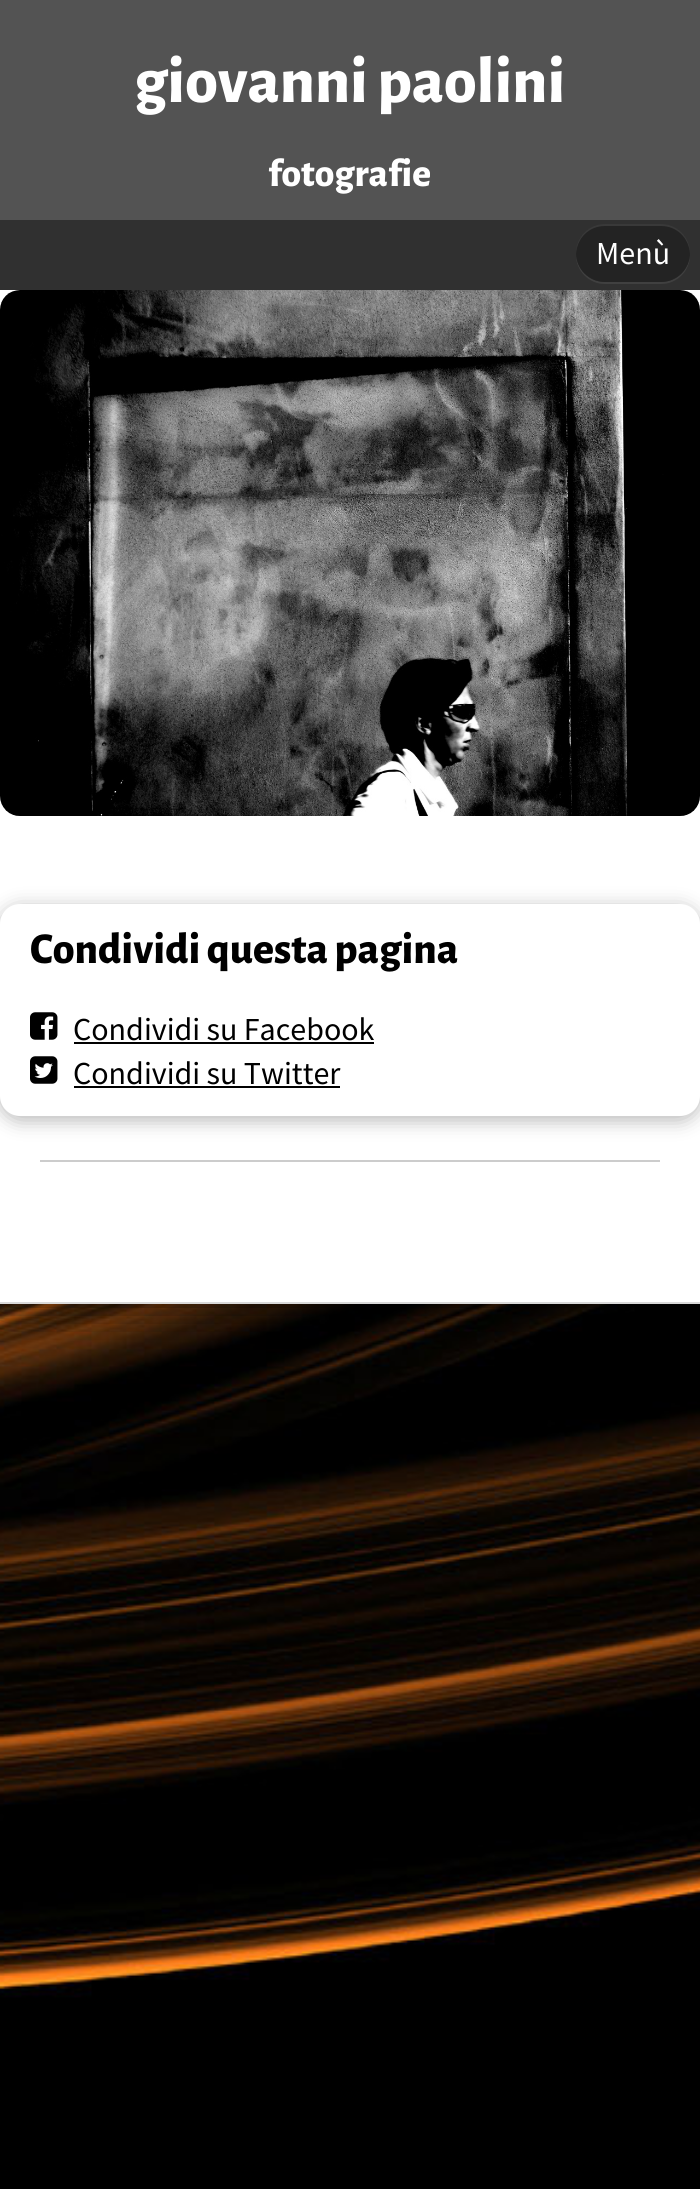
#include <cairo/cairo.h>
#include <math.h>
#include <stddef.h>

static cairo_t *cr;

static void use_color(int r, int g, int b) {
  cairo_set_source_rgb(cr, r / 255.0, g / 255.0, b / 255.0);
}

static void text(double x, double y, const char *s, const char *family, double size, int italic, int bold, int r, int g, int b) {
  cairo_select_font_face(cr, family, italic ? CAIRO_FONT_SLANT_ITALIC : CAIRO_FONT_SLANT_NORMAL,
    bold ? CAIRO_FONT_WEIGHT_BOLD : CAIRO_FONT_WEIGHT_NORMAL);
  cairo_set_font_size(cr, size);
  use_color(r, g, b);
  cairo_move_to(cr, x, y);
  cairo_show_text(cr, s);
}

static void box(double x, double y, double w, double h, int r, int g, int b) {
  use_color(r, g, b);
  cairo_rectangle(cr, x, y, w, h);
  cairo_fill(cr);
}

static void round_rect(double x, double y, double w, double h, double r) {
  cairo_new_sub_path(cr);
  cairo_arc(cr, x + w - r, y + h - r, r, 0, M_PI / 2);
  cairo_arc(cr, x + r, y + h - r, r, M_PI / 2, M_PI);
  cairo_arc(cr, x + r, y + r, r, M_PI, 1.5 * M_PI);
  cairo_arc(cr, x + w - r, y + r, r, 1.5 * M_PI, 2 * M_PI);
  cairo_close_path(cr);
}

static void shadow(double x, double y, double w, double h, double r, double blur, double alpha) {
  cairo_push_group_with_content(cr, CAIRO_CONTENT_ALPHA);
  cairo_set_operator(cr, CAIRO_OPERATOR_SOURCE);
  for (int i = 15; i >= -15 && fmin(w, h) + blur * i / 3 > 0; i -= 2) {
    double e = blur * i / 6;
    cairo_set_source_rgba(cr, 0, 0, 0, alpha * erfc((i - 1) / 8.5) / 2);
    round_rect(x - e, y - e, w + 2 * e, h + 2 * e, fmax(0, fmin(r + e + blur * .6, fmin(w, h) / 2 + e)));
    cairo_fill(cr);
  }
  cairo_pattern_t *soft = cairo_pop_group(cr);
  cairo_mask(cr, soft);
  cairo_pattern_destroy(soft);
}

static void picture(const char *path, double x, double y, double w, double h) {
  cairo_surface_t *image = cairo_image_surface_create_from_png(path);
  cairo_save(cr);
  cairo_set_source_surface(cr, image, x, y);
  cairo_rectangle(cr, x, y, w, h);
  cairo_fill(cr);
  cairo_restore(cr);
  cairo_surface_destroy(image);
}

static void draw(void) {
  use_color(255, 255, 255);
  cairo_paint(cr);
  picture("img_01.png", 0, 1304, 700, 885);
  use_color(0, 0, 0);
  shadow(0, 0, 700, 1304, 0, 24, 0.8);
  box(0, 290, 700, 1012, 255, 255, 255);
  box(0, 1302, 700, 2, 217, 217, 217);
  box(0, 0, 700, 220, 83, 83, 83);
  box(0, 220, 700, 70, 48, 48, 48);
  use_color(64, 64, 64);
  cairo_new_path(cr);
  cairo_move_to(cr, 576, 254);
  cairo_line_to(cr, 576, 255);
  cairo_curve_to(cr, 576, 271, 589, 284, 605, 284);
  cairo_line_to(cr, 661, 284);
  cairo_curve_to(cr, 677, 284, 690, 271, 690, 255);
  cairo_line_to(cr, 690, 254);
  cairo_curve_to(cr, 689, 270, 677, 282, 661, 282);
  cairo_line_to(cr, 605, 282);
  cairo_curve_to(cr, 589, 282, 577, 270, 576, 254);
  cairo_close_path(cr);
  cairo_fill(cr);
  use_color(35, 35, 35);
  round_rect(576, 224, 114, 58, 29);
  cairo_fill(cr);
  cairo_set_source_rgba(cr, 1, 1, 1, 0.1);
  cairo_new_path(cr);
  cairo_move_to(cr, 605, 226);
  cairo_line_to(cr, 661, 226);
  cairo_curve_to(cr, 677, 226, 689, 238, 690, 254);
  cairo_line_to(cr, 690, 253);
  cairo_curve_to(cr, 690, 237, 677, 224, 661, 224);
  cairo_line_to(cr, 605, 224);
  cairo_curve_to(cr, 589, 224, 576, 237, 576, 253);
  cairo_line_to(cr, 576, 254);
  cairo_curve_to(cr, 577, 238, 589, 226, 605, 226);
  cairo_close_path(cr);
  cairo_fill(cr);
  picture("img_02.png", 0, 290, 700, 526);
  use_color(0, 0, 0);
  shadow(0, 908, 700, 212, 20, 10, 0.29);
  use_color(255, 255, 255);
  round_rect(0, 904, 700, 212, 20);
  cairo_fill(cr);
  picture("img_03.png", 30, 1012, 28, 28);
  box(74, 1042, 300, 2, 0, 0, 0);
  picture("img_04.png", 30, 1056, 28, 28);
  box(74, 1086, 266, 2, 0, 0, 0);
  box(40, 1160, 620, 2, 204, 204, 204);
  text(134, 102, "giovanni paolini", "Alegreya Sans ExtraBold", 65.75, 0, 0, 255, 255, 255);
  text(268, 186, "fotografie", "Alegreya Sans ExtraBold", 39.5, 0, 0, 255, 255, 255);
  text(596, 264, "Menù", "Source Sans Pro", 32, 0, 0, 255, 255, 255);
  text(30, 963, "Condividi questa pagina", "Alegreya Sans ExtraBold", 44, 0, 0, 0, 0, 0);
  text(73, 1040, "Condividi su Facebook", "Source Sans Pro", 32, 0, 0, 0, 0, 0);
  text(73, 1084, "Condividi su Twitter", "Source Sans Pro", 32, 0, 0, 0, 0, 0);
}

int main(void) {
  cairo_surface_t *surface = cairo_image_surface_create(CAIRO_FORMAT_RGB24, 700, 2189);
  cr = cairo_create(surface);
  cairo_font_options_t *options = cairo_font_options_create();
  cairo_font_options_set_hint_metrics(options, CAIRO_HINT_METRICS_OFF);
  cairo_font_options_set_hint_style(options, CAIRO_HINT_STYLE_NONE);
  cairo_set_font_options(cr, options);
  cairo_set_miter_limit(cr, 4);
  draw();
  cairo_surface_write_to_png(surface, "out.png");
  cairo_font_options_destroy(options);
  cairo_destroy(cr);
  cairo_surface_destroy(surface);
  return 0;
}
